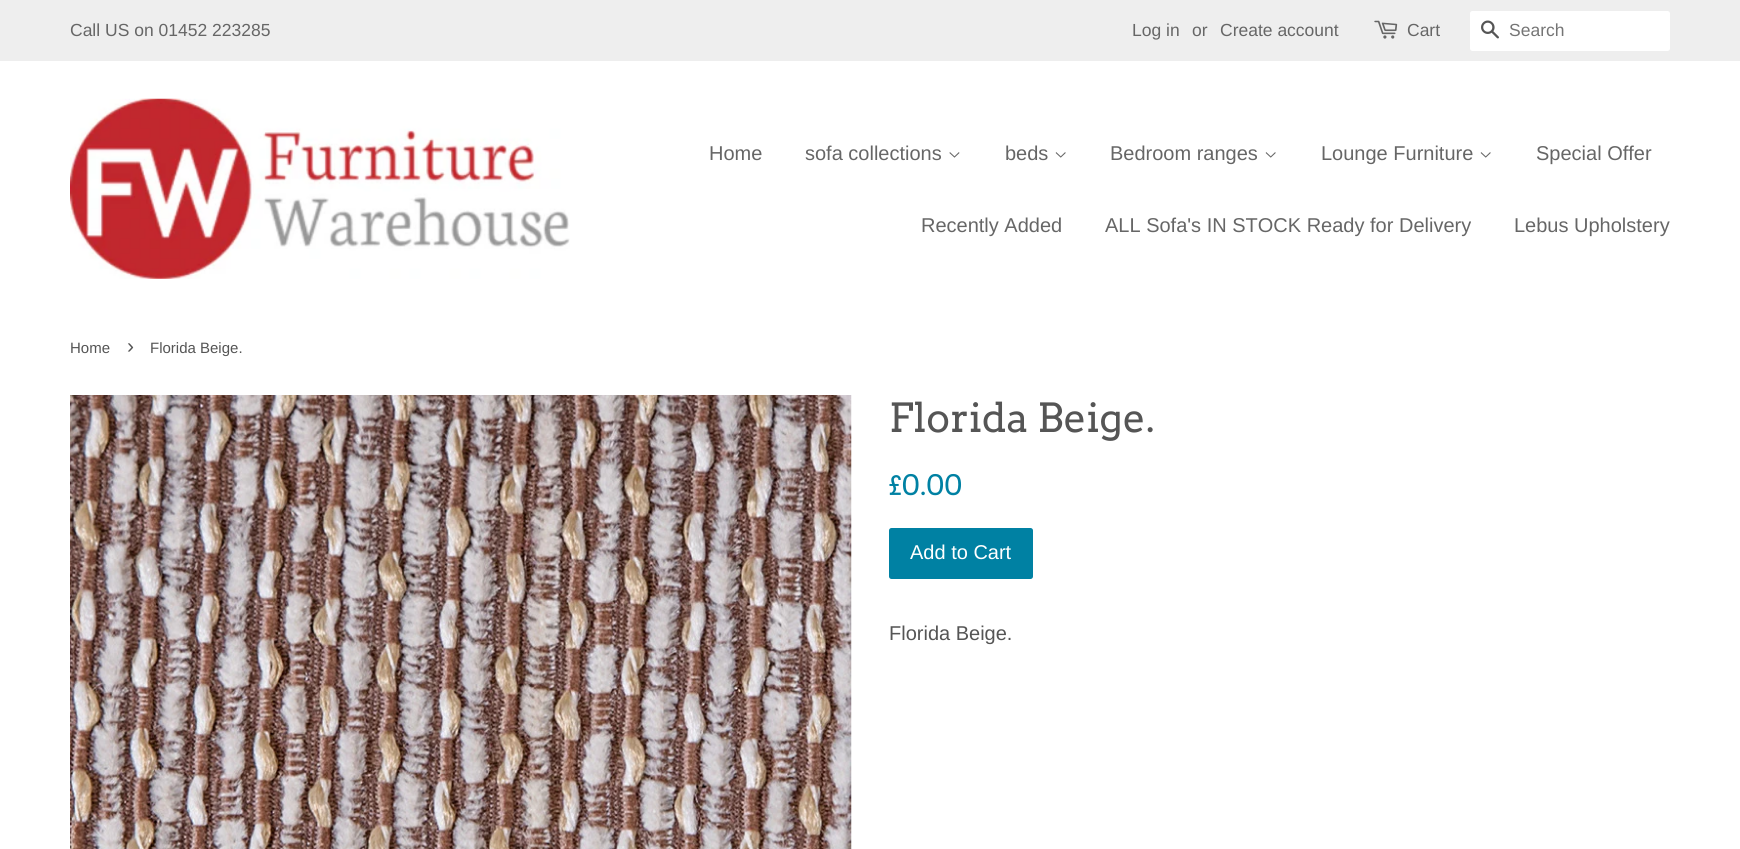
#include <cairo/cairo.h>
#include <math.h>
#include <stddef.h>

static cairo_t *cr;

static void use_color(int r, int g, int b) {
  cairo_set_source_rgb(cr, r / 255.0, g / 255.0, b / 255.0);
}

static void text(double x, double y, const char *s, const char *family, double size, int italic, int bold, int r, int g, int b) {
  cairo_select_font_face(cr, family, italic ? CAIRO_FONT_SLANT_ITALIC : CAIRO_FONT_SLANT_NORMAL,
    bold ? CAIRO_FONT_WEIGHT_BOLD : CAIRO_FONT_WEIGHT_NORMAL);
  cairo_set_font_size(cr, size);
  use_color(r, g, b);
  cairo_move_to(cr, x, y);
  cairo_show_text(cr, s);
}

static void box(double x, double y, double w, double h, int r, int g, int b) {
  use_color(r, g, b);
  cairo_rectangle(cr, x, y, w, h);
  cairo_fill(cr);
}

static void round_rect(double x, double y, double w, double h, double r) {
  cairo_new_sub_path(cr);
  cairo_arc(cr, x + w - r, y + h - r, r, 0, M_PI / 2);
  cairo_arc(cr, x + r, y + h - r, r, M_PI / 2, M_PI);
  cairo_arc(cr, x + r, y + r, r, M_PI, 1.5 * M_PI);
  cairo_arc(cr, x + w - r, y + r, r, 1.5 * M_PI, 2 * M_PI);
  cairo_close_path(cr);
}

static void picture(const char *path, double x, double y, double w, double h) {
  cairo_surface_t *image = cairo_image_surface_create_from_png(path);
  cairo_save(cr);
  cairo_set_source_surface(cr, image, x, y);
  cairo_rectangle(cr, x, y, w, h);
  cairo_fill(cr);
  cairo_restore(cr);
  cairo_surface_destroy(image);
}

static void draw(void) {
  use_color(255, 255, 255);
  cairo_paint(cr);
  box(0, 0, 1740, 61, 238, 238, 238);
  picture("img_01.png", 1374, 20, 24, 19);
  use_color(255, 255, 255);
  round_rect(1470, 11, 200, 40, 2.5);
  cairo_fill(cr);
  picture("img_02.png", 1481, 20, 18, 19);
  picture("img_03.png", 70, 98, 500, 181);
  picture("img_04.png", 949, 152, 11, 6);
  picture("img_05.png", 1055, 152, 11, 6);
  picture("img_05.png", 1265, 152, 11, 6);
  picture("img_05.png", 1480, 152, 11, 6);
  picture("img_06.png", 70, 395, 782, 454);
  use_color(0, 129, 163);
  round_rect(889, 528, 144, 51, 2.5);
  cairo_fill(cr);
  text(70, 36, "Call US on 01452 223285", "Liberation Sans", 17.5, 0, 0, 102, 102, 102);
  text(1132, 36, "Log in", "Liberation Sans", 17.5, 0, 0, 102, 102, 102);
  text(1192, 36, "or", "Liberation Sans", 17.5, 0, 0, 102, 102, 102);
  text(1220, 36, "Create account", "Liberation Sans", 17.5, 0, 0, 102, 102, 102);
  text(1407, 36, "Cart", "Liberation Sans", 17.5, 0, 0, 102, 102, 102);
  text(1509, 36, "Search", "Liberation Sans", 17.5, 0, 0, 117, 117, 117);
  text(709, 160, "Home", "Liberation Sans", 20, 0, 0, 102, 102, 102);
  text(805, 160, "sofa collections", "Liberation Sans", 20, 0, 0, 102, 102, 102);
  text(1005, 160, "beds", "Liberation Sans", 20, 0, 0, 102, 102, 102);
  text(1110, 160, "Bedroom ranges", "Liberation Sans", 20, 0, 0, 102, 102, 102);
  text(1321, 160, "Lounge Furniture", "Liberation Sans", 20, 0, 0, 102, 102, 102);
  text(1536, 160, "Special Offer", "Liberation Sans", 20, 0, 0, 102, 102, 102);
  text(921, 232, "Recently Added", "Liberation Sans", 20, 0, 0, 102, 102, 102);
  text(1105, 232, "ALL Sofa's IN STOCK Ready for Delivery", "Liberation Sans", 20, 0, 0, 102, 102, 102);
  text(1514, 232, "Lebus Upholstery", "Liberation Sans", 20, 0, 0, 102, 102, 102);
  text(70, 353, "Home", "Liberation Sans", 15, 0, 0, 85, 85, 85);
  text(127, 353, "›", "Liberation Sans", 21, 0, 0, 85, 85, 85);
  text(150, 353, "Florida Beige.", "Liberation Sans", 15, 0, 0, 85, 85, 85);
  text(889, 432, "Florida Beige.", "Arvo", 40, 0, 0, 85, 85, 85);
  text(889, 495, "£0.00", "Arvo", 28, 0, 0, 0, 129, 163);
  text(910, 559, "Add to Cart", "Liberation Sans", 20, 0, 0, 255, 255, 255);
  text(889, 640, "Florida Beige.", "Liberation Sans", 20, 0, 0, 85, 85, 85);
}

int main(void) {
  cairo_surface_t *surface = cairo_image_surface_create(CAIRO_FORMAT_RGB24, 1740, 849);
  cr = cairo_create(surface);
  cairo_font_options_t *options = cairo_font_options_create();
  cairo_font_options_set_hint_metrics(options, CAIRO_HINT_METRICS_OFF);
  cairo_font_options_set_hint_style(options, CAIRO_HINT_STYLE_NONE);
  cairo_set_font_options(cr, options);
  cairo_set_miter_limit(cr, 4);
  draw();
  cairo_surface_write_to_png(surface, "out.png");
  cairo_font_options_destroy(options);
  cairo_destroy(cr);
  cairo_surface_destroy(surface);
  return 0;
}
